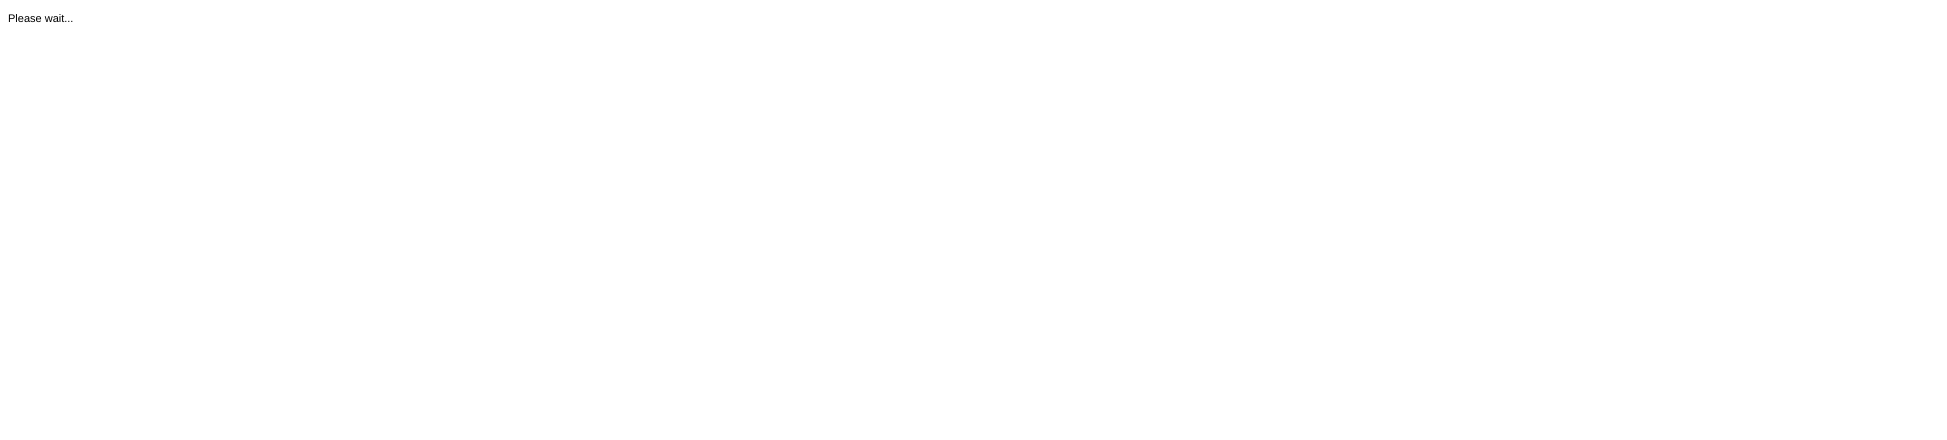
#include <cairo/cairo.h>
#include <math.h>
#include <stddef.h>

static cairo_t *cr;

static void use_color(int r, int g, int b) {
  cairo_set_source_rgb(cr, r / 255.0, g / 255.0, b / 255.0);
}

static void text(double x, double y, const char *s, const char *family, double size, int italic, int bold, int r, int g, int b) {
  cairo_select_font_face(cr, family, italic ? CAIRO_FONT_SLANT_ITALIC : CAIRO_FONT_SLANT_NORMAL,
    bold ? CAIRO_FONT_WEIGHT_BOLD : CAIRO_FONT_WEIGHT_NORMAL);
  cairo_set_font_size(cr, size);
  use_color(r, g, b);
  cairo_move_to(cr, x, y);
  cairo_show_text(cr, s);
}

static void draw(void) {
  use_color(255, 255, 255);
  cairo_paint(cr);
  text(8, 22, "Please wait...", "Liberation Sans", 11, 0, 0, 0, 0, 0);
}

int main(void) {
  cairo_surface_t *surface = cairo_image_surface_create(CAIRO_FORMAT_RGB24, 1947, 440);
  cr = cairo_create(surface);
  cairo_font_options_t *options = cairo_font_options_create();
  cairo_font_options_set_hint_metrics(options, CAIRO_HINT_METRICS_OFF);
  cairo_font_options_set_hint_style(options, CAIRO_HINT_STYLE_NONE);
  cairo_set_font_options(cr, options);
  cairo_set_miter_limit(cr, 4);
  draw();
  cairo_surface_write_to_png(surface, "out.png");
  cairo_font_options_destroy(options);
  cairo_destroy(cr);
  cairo_surface_destroy(surface);
  return 0;
}
